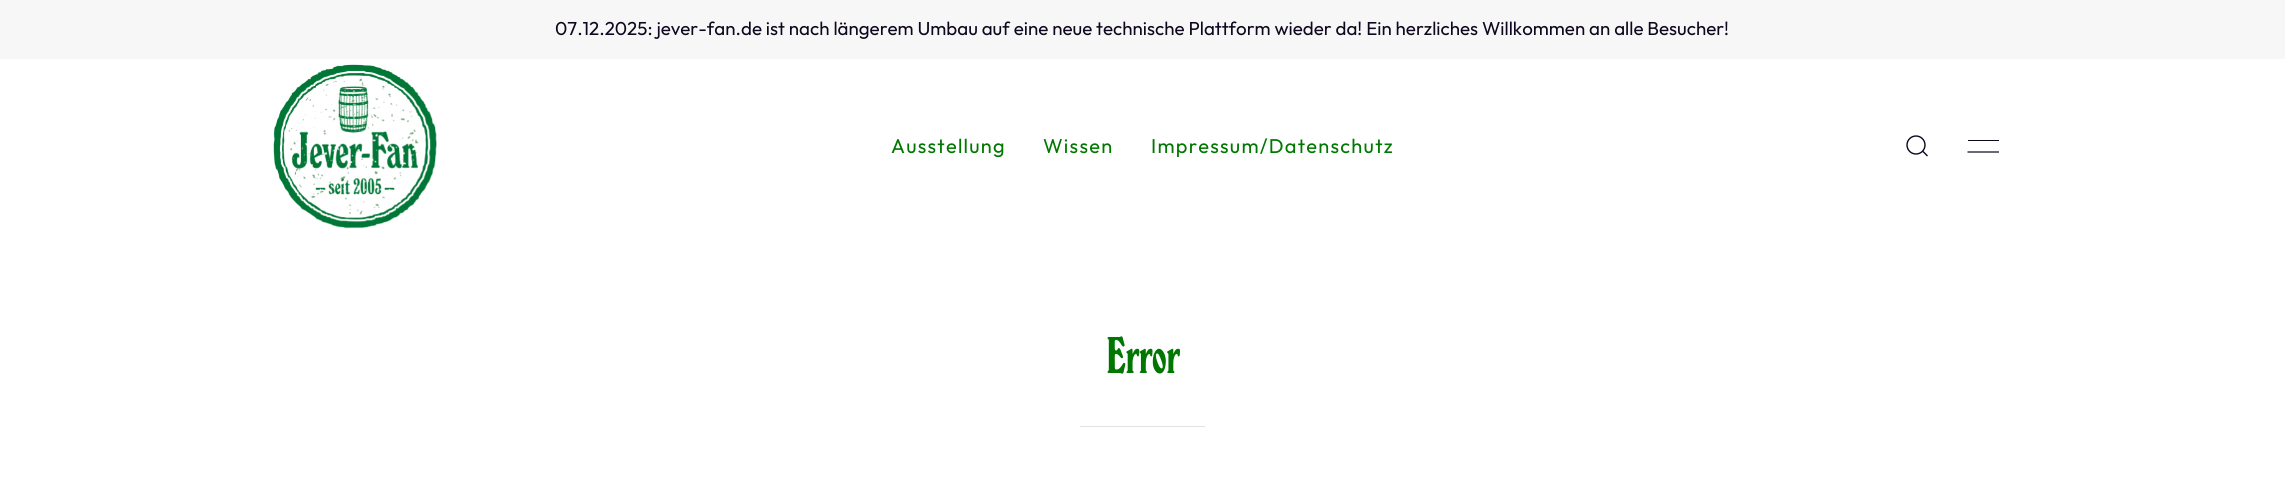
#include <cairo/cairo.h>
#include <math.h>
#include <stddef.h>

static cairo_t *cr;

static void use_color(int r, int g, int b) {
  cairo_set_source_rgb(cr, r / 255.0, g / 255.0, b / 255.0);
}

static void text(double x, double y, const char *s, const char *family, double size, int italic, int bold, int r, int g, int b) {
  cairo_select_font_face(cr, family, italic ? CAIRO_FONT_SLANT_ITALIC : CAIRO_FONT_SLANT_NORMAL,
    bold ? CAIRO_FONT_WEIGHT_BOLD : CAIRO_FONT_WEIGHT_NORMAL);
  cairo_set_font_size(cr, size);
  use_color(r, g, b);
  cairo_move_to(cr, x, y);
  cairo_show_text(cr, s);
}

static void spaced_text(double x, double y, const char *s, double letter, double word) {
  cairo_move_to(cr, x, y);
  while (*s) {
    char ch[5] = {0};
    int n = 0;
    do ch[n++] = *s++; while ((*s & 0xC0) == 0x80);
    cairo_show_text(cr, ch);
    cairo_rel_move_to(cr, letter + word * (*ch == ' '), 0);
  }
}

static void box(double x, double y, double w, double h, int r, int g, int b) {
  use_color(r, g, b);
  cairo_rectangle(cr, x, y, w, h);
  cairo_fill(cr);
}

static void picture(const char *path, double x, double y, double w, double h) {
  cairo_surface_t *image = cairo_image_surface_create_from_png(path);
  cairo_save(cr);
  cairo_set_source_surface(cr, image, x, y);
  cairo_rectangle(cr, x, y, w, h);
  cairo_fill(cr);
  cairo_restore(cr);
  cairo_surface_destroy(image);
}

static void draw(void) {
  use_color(255, 255, 255);
  cairo_paint(cr);
  box(0, 0, 2285, 59, 247, 247, 247);
  picture("img_01.png", 273, 64, 164, 165);
  cairo_arc(cr, 1916, 145, 9, 0, 2 * M_PI);
  use_color(14, 7, 29);
  cairo_set_line_width(cr, 1.4);
  cairo_stroke(cr);
  cairo_new_path(cr);
  cairo_move_to(cr, 1922.5, 151);
  cairo_line_to(cr, 1927.5, 156);
  cairo_close_path(cr);
  cairo_stroke(cr);
  box(1968, 140, 31, 1, 14, 7, 29);
  cairo_new_path(cr);
  cairo_move_to(cr, 1967.5, 152);
  cairo_line_to(cr, 1999, 152);
  cairo_set_line_width(cr, 1.2);
  cairo_stroke(cr);
  box(1080, 426, 125, 1, 225, 225, 225);
  text(555, 35, "07.12.2025: jever-fan.de ist nach längerem Umbau auf eine neue technische Plattform wieder da! Ein herzliches Willkommen an alle Besucher!", "Outfit", 18.75, 0, 0, 14, 7, 29);
  cairo_set_font_size(cr, 20);
  use_color(0, 119, 0);
  spaced_text(891, 153, "Ausstellung", 1.25, 0);
  spaced_text(1043, 153, "Wissen", 1.25, 0);
  spaced_text(1151, 153, "Impressum/Datenschutz", 1.25, 0);
  text(1106, 373, "Error", "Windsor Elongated", 54, 0, 0, 0, 119, 0);
}

int main(void) {
  cairo_surface_t *surface = cairo_image_surface_create(CAIRO_FORMAT_RGB24, 2285, 479);
  cr = cairo_create(surface);
  cairo_font_options_t *options = cairo_font_options_create();
  cairo_font_options_set_hint_metrics(options, CAIRO_HINT_METRICS_OFF);
  cairo_font_options_set_hint_style(options, CAIRO_HINT_STYLE_NONE);
  cairo_set_font_options(cr, options);
  cairo_set_miter_limit(cr, 4);
  draw();
  cairo_surface_write_to_png(surface, "out.png");
  cairo_font_options_destroy(options);
  cairo_destroy(cr);
  cairo_surface_destroy(surface);
  return 0;
}
